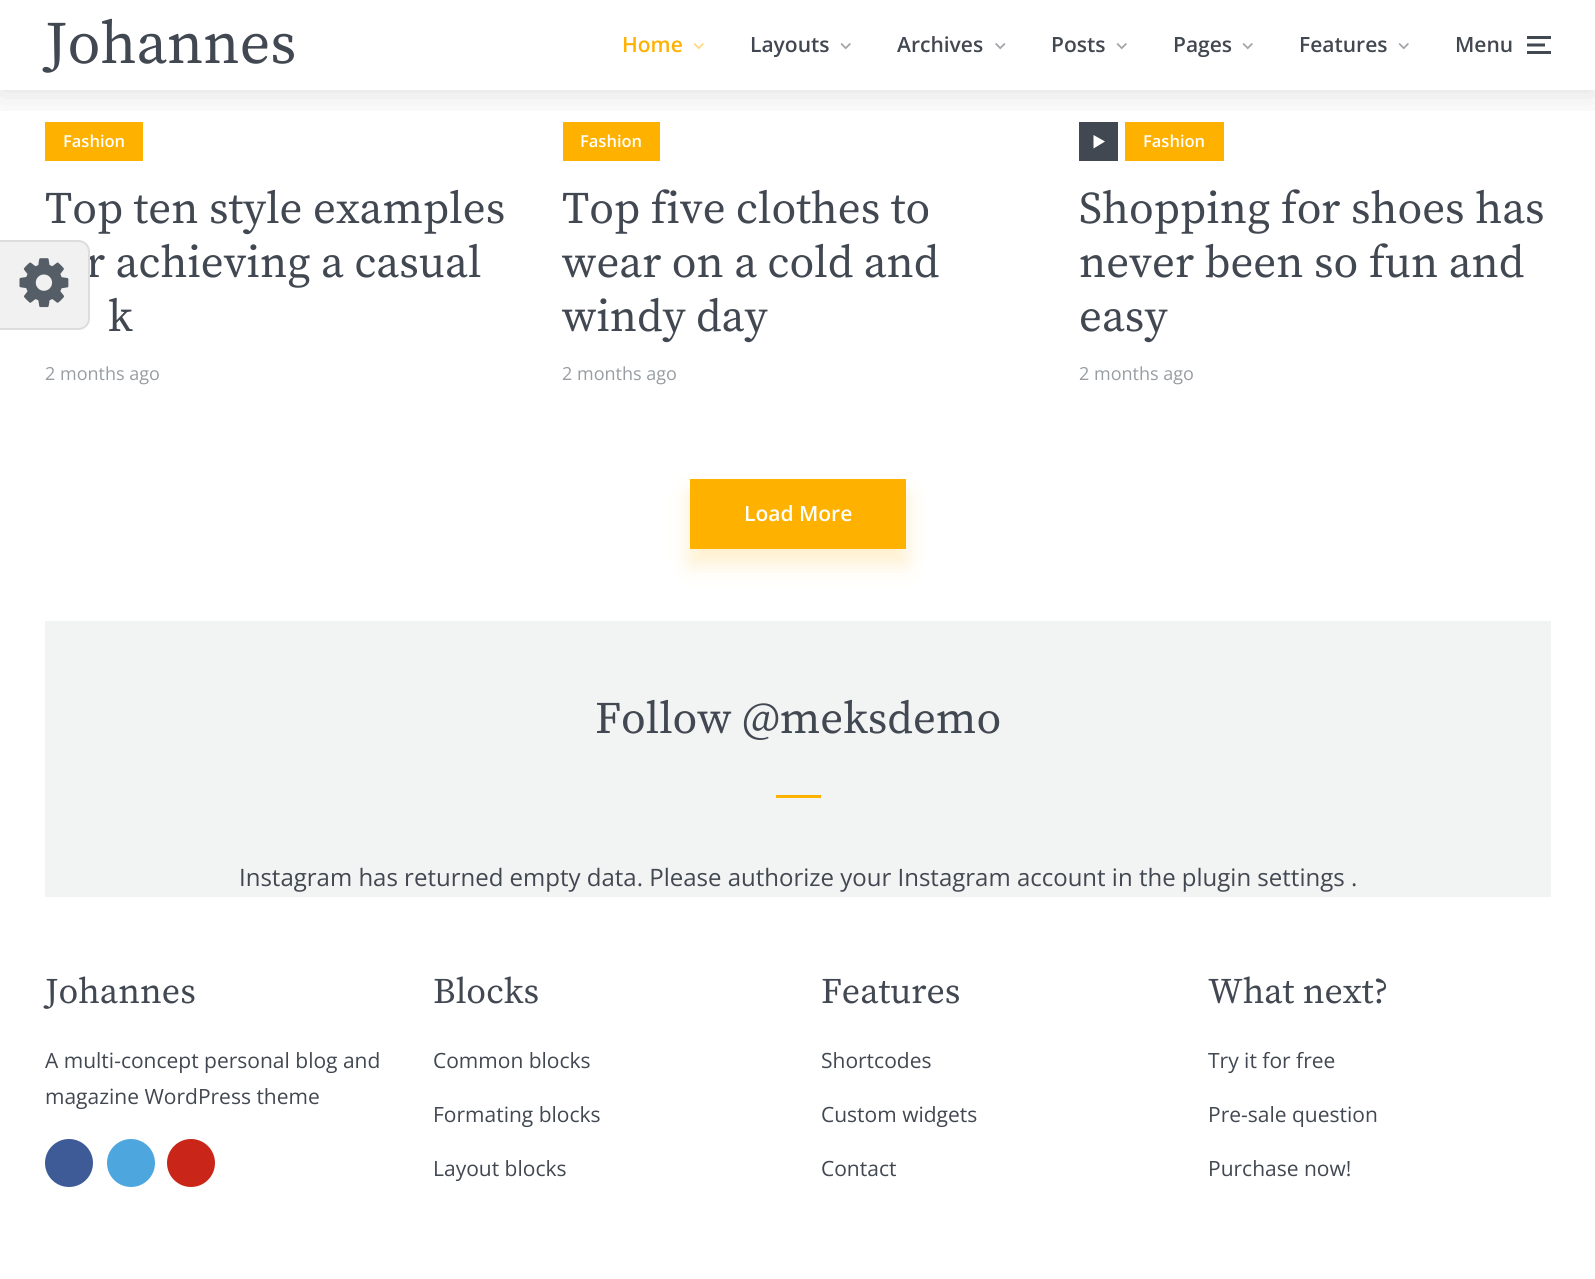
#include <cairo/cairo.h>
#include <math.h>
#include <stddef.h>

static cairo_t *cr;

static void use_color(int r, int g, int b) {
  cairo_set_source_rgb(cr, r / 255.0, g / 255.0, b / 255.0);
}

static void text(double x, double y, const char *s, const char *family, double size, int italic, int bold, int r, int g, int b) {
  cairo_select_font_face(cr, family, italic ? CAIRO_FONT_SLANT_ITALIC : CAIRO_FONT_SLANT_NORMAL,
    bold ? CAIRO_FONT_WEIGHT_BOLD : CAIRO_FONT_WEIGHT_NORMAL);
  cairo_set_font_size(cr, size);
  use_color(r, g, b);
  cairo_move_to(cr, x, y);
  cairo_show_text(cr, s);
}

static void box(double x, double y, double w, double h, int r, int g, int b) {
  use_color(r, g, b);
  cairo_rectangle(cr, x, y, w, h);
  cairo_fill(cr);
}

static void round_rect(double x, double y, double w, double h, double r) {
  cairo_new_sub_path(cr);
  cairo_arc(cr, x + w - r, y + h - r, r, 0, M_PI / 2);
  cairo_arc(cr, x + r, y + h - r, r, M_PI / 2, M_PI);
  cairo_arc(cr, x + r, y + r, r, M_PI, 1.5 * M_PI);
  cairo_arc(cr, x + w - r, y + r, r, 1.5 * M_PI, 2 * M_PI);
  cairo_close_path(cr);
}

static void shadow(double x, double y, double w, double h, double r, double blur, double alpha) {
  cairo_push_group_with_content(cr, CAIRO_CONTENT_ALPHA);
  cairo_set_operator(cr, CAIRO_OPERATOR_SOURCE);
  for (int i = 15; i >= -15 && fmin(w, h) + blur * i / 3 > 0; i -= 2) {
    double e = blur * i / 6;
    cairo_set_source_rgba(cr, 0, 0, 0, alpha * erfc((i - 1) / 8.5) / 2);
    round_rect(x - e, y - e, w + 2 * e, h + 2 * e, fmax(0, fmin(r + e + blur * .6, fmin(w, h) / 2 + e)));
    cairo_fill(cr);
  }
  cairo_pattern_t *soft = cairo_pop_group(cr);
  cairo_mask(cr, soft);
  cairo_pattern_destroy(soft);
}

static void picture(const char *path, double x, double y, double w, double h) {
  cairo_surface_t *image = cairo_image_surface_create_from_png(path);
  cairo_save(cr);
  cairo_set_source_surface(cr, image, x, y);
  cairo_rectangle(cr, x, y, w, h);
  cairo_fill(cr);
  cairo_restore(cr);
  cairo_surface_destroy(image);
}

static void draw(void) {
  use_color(255, 255, 255);
  cairo_paint(cr);
  box(45, 122, 98, 39, 255, 177, 0);
  box(563, 122, 97, 39, 255, 177, 0);
  box(1079, 122, 39, 39, 66, 72, 81);
  use_color(255, 255, 255);
  cairo_new_path(cr);
  cairo_move_to(cr, 1093.5, 135);
  cairo_line_to(cr, 1105, 141.5);
  cairo_line_to(cr, 1093.5, 148.5);
  cairo_close_path(cr);
  cairo_fill(cr);
  box(1125, 122, 99, 39, 255, 177, 0);
  cairo_save(cr);
  cairo_rectangle(cr, 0, 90, 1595, 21);
  cairo_clip(cr);
  use_color(0, 0, 0);
  shadow(0, 0, 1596, 90, 0, 19, 0.15);
  cairo_restore(cr);
  picture("img_01.png", 693, 43, 11, 7);
  picture("img_02.png", 840, 43, 11, 7);
  picture("img_03.png", 995, 43, 11, 7);
  picture("img_02.png", 1116, 43, 11, 7);
  picture("img_02.png", 1242, 43, 11, 7);
  picture("img_02.png", 1398, 43, 11, 7);
  picture("img_04.png", 1527, 36, 24, 18);
  use_color(255, 177, 0);
  shadow(690, 494, 216, 70, 0, 11, 0.2);
  box(690, 479, 216, 70, 255, 177, 0);
  box(45, 621, 1506, 276, 242, 243, 243);
  box(776, 795, 45, 3, 255, 177, 0);
  use_color(62, 91, 152);
  cairo_arc(cr, 69, 1163, 24, 0, 2 * M_PI);
  cairo_fill(cr);
  use_color(77, 167, 222);
  cairo_arc(cr, 131, 1163, 24, 0, 2 * M_PI);
  cairo_fill(cr);
  use_color(201, 38, 25);
  cairo_arc(cr, 191, 1163, 24, 0, 2 * M_PI);
  cairo_fill(cr);
  text(45, 63, "Johannes", "Source Serif Pro", 60, 0, 0, 66, 72, 81);
  text(622, 52, "Home", "Open Sans SemiBold", 21, 0, 0, 255, 177, 0);
  text(750, 52, "Layouts", "Open Sans SemiBold", 21, 0, 0, 66, 72, 81);
  text(897, 52, "Archives", "Open Sans SemiBold", 21, 0, 0, 66, 72, 81);
  text(1051, 52, "Posts", "Open Sans SemiBold", 21, 0, 0, 66, 72, 81);
  text(1173, 52, "Pages", "Open Sans SemiBold", 21, 0, 0, 66, 72, 81);
  text(1299, 52, "Features", "Open Sans SemiBold", 21, 0, 0, 66, 72, 81);
  text(1455, 52, "Menu", "Open Sans SemiBold", 21, 0, 0, 66, 72, 81);
  text(63, 147, "Fashion", "Open Sans SemiBold", 16.5, 0, 0, 255, 255, 255);
  text(45, 223, "Top ten style examples", "Source Serif Pro", 45, 0, 0, 66, 72, 81);
  text(86, 277, "r achieving a casual", "Source Serif Pro", 45, 0, 0, 66, 72, 81);
  text(108, 331, "k", "Source Serif Pro", 45, 0, 0, 66, 72, 81);
  text(45, 380, "2 months ago", "Open Sans", 18, 0, 0, 152, 157, 162);
  text(580, 147, "Fashion", "Open Sans SemiBold", 16.5, 0, 0, 255, 255, 255);
  text(562, 223, "Top five clothes to", "Source Serif Pro", 45, 0, 0, 66, 72, 81);
  text(562, 277, "wear on a cold and", "Source Serif Pro", 45, 0, 0, 66, 72, 81);
  text(562, 331, "windy day", "Source Serif Pro", 45, 0, 0, 66, 72, 81);
  text(562, 380, "2 months ago", "Open Sans", 18, 0, 0, 152, 157, 162);
  text(1143, 147, "Fashion", "Open Sans SemiBold", 16.5, 0, 0, 255, 255, 255);
  text(1079, 223, "Shopping for shoes has", "Source Serif Pro", 45, 0, 0, 66, 72, 81);
  text(1079, 277, "never been so fun and", "Source Serif Pro", 45, 0, 0, 66, 72, 81);
  text(1079, 331, "easy", "Source Serif Pro", 45, 0, 0, 66, 72, 81);
  text(1079, 380, "2 months ago", "Open Sans", 18, 0, 0, 152, 157, 162);
  text(744, 521, "Load More", "Open Sans SemiBold", 21, 0, 0, 255, 255, 255);
  text(595, 733, "Follow @meksdemo", "Source Serif Pro", 45, 0, 0, 66, 72, 81);
  text(239, 886, "Instagram has returned empty data. Please authorize your Instagram account in the plugin settings .", "Open Sans", 24, 0, 0, 66, 72, 81);
  text(45, 1003, "Johannes", "Source Serif Pro", 36, 0, 0, 66, 72, 81);
  text(45, 1068, "A multi-concept personal blog and", "Open Sans", 21, 0, 0, 66, 72, 81);
  text(45, 1104, "magazine WordPress theme", "Open Sans", 21, 0, 0, 66, 72, 81);
  text(433, 1003, "Blocks", "Source Serif Pro", 36, 0, 0, 66, 72, 81);
  text(433, 1068, "Common blocks", "Open Sans", 21, 0, 0, 66, 72, 81);
  text(433, 1122, "Formating blocks", "Open Sans", 21, 0, 0, 66, 72, 81);
  text(433, 1176, "Layout blocks", "Open Sans", 21, 0, 0, 66, 72, 81);
  text(821, 1003, "Features", "Source Serif Pro", 36, 0, 0, 66, 72, 81);
  text(821, 1068, "Shortcodes", "Open Sans", 21, 0, 0, 66, 72, 81);
  text(821, 1122, "Custom widgets", "Open Sans", 21, 0, 0, 66, 72, 81);
  text(821, 1176, "Contact", "Open Sans", 21, 0, 0, 66, 72, 81);
  text(1208, 1003, "What next?", "Source Serif Pro", 36, 0, 0, 66, 72, 81);
  text(1208, 1068, "Try it for free", "Open Sans", 21, 0, 0, 66, 72, 81);
  text(1208, 1122, "Pre-sale question", "Open Sans", 21, 0, 0, 66, 72, 81);
  text(1208, 1176, "Purchase now!", "Open Sans", 21, 0, 0, 66, 72, 81);
  use_color(241, 241, 241);
  cairo_new_path(cr);
  cairo_move_to(cr, 0, 240);
  cairo_line_to(cr, 78, 240);
  cairo_curve_to(cr, 84.5, 240, 90, 245.5, 90, 252);
  cairo_line_to(cr, 90, 318);
  cairo_curve_to(cr, 90, 324.5, 84.5, 330, 78, 330);
  cairo_line_to(cr, 0, 330);
  cairo_close_path(cr);
  cairo_fill(cr);
  use_color(221, 221, 221);
  cairo_set_fill_rule(cr, CAIRO_FILL_RULE_EVEN_ODD);
  cairo_new_path(cr);
  cairo_move_to(cr, 0, 240);
  cairo_line_to(cr, 78, 240);
  cairo_curve_to(cr, 85, 240, 90, 245, 90, 252);
  cairo_line_to(cr, 90, 318);
  cairo_curve_to(cr, 90, 325, 85, 330, 78, 330);
  cairo_line_to(cr, 0, 330);
  cairo_close_path(cr);
  cairo_move_to(cr, 0, 242);
  cairo_line_to(cr, 78, 242);
  cairo_curve_to(cr, 84, 242, 88, 246, 88, 252);
  cairo_line_to(cr, 88, 318);
  cairo_curve_to(cr, 88, 324, 84, 328, 78, 328);
  cairo_line_to(cr, 0, 328);
  cairo_close_path(cr);
  cairo_fill(cr);
  picture("img_05.png", 19, 258, 50, 50);
}

int main(void) {
  cairo_surface_t *surface = cairo_image_surface_create(CAIRO_FORMAT_RGB24, 1595, 1279);
  cr = cairo_create(surface);
  cairo_font_options_t *options = cairo_font_options_create();
  cairo_font_options_set_hint_metrics(options, CAIRO_HINT_METRICS_OFF);
  cairo_font_options_set_hint_style(options, CAIRO_HINT_STYLE_NONE);
  cairo_set_font_options(cr, options);
  cairo_set_miter_limit(cr, 4);
  draw();
  cairo_surface_write_to_png(surface, "out.png");
  cairo_font_options_destroy(options);
  cairo_destroy(cr);
  cairo_surface_destroy(surface);
  return 0;
}
